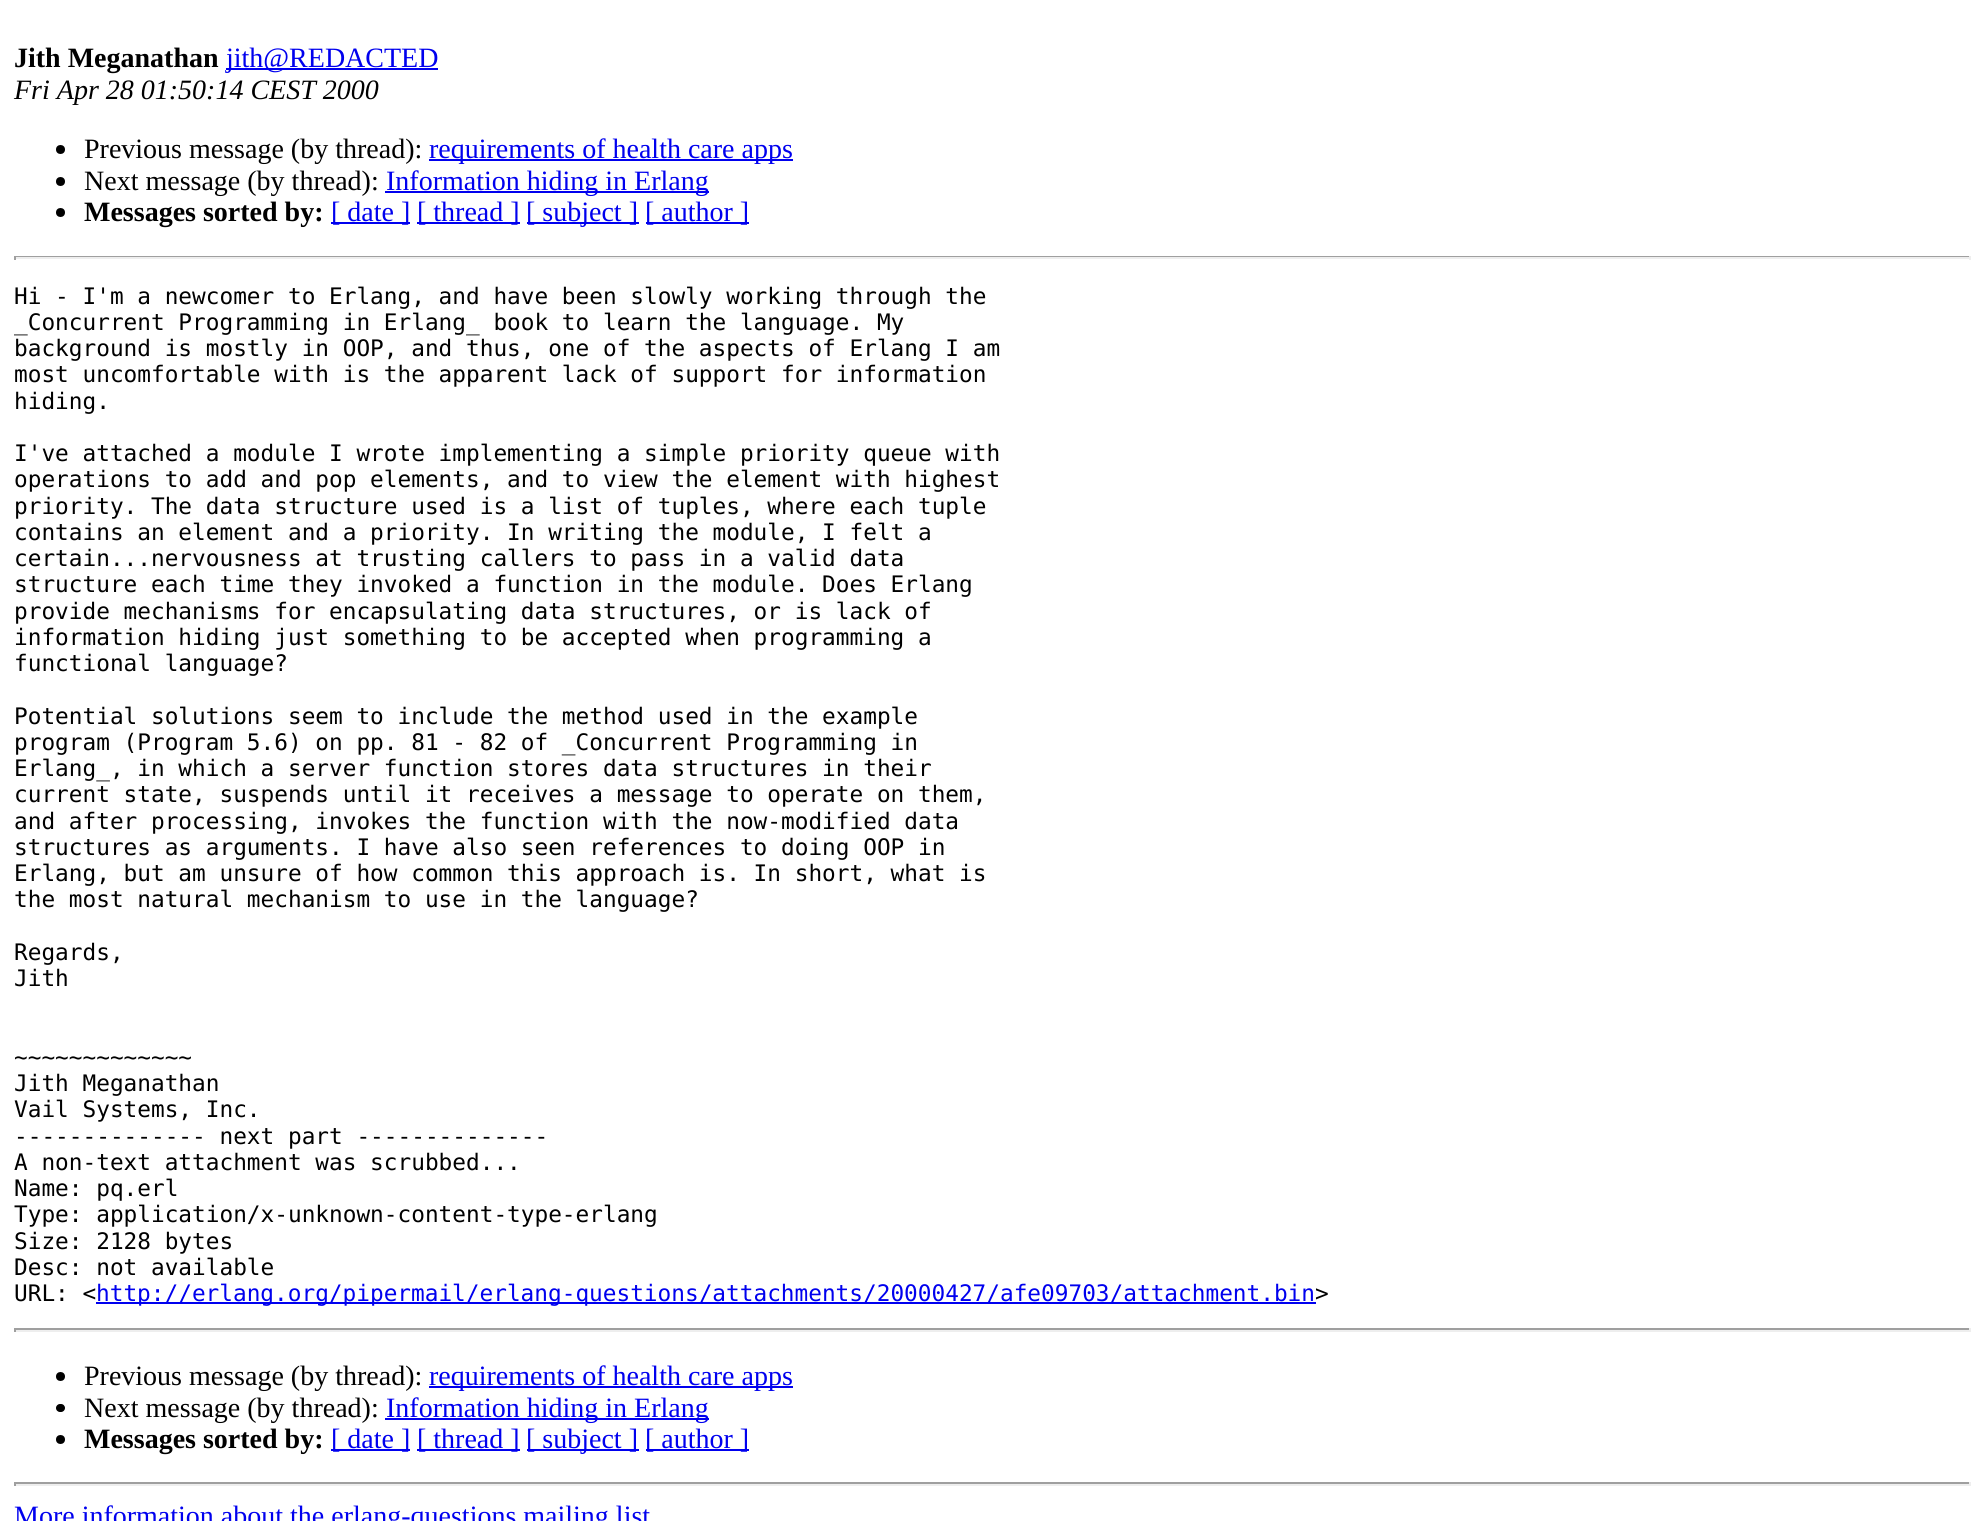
#include <cairo/cairo.h>
#include <math.h>
#include <stddef.h>

static cairo_t *cr;

static void use_color(int r, int g, int b) {
  cairo_set_source_rgb(cr, r / 255.0, g / 255.0, b / 255.0);
}

static void text(double x, double y, const char *s, const char *family, double size, int italic, int bold, int r, int g, int b) {
  cairo_select_font_face(cr, family, italic ? CAIRO_FONT_SLANT_ITALIC : CAIRO_FONT_SLANT_NORMAL,
    bold ? CAIRO_FONT_WEIGHT_BOLD : CAIRO_FONT_WEIGHT_NORMAL);
  cairo_set_font_size(cr, size);
  use_color(r, g, b);
  cairo_move_to(cr, x, y);
  cairo_show_text(cr, s);
}

static void box(double x, double y, double w, double h, int r, int g, int b) {
  use_color(r, g, b);
  cairo_rectangle(cr, x, y, w, h);
  cairo_fill(cr);
}

static void round_rect(double x, double y, double w, double h, double r) {
  cairo_new_sub_path(cr);
  cairo_arc(cr, x + w - r, y + h - r, r, 0, M_PI / 2);
  cairo_arc(cr, x + r, y + h - r, r, M_PI / 2, M_PI);
  cairo_arc(cr, x + r, y + r, r, M_PI, 1.5 * M_PI);
  cairo_arc(cr, x + w - r, y + r, r, 1.5 * M_PI, 2 * M_PI);
  cairo_close_path(cr);
}

static void draw(void) {
  use_color(255, 255, 255);
  cairo_paint(cr);
  box(226, 68, 212, 2, 0, 0, 238);
  use_color(0, 0, 0);
  cairo_arc(cr, 60.5, 149.5, 4.5, 0, 2 * M_PI);
  cairo_fill(cr);
  box(429, 159, 364, 2, 0, 0, 238);
  use_color(0, 0, 0);
  cairo_arc(cr, 60.5, 181.5, 4.5, 0, 2 * M_PI);
  cairo_fill(cr);
  box(385, 191, 324, 2, 0, 0, 238);
  use_color(0, 0, 0);
  cairo_arc(cr, 60.5, 212.5, 4.5, 0, 2 * M_PI);
  cairo_fill(cr);
  box(331, 222, 79, 2, 0, 0, 238);
  box(417, 222, 103, 2, 0, 0, 238);
  box(527, 222, 112, 2, 0, 0, 238);
  box(646, 222, 103, 2, 0, 0, 238);
  box(14, 256, 1957, 1, 159, 159, 159);
  box(1969, 256, 2, 4, 238, 238, 238);
  box(14, 257, 1957, 2, 238, 238, 238);
  box(14, 256, 2, 4, 159, 159, 159);
  box(96, 1302, 1220, 2, 0, 0, 238);
  box(14, 1328, 1957, 2, 159, 159, 159);
  box(1969, 1328, 2, 4, 238, 238, 238);
  box(14, 1330, 1957, 2, 238, 238, 238);
  box(14, 1328, 2, 4, 159, 159, 159);
  use_color(0, 0, 0);
  cairo_arc(cr, 60.5, 1376.5, 4.5, 0, 2 * M_PI);
  cairo_fill(cr);
  box(429, 1386, 364, 2, 0, 0, 238);
  use_color(0, 0, 0);
  round_rect(56, 1404, 9, 8, 4);
  cairo_fill(cr);
  box(385, 1418, 324, 2, 0, 0, 238);
  use_color(0, 0, 0);
  cairo_arc(cr, 60.5, 1439.5, 4.5, 0, 2 * M_PI);
  cairo_fill(cr);
  box(331, 1449, 79, 2, 0, 0, 238);
  box(417, 1449, 103, 2, 0, 0, 238);
  box(527, 1449, 112, 2, 0, 0, 238);
  box(646, 1449, 103, 2, 0, 0, 238);
  box(14, 1482, 1957, 2, 159, 159, 159);
  box(1969, 1482, 2, 4, 238, 238, 238);
  box(14, 1484, 1957, 2, 238, 238, 238);
  box(14, 1482, 2, 4, 159, 159, 159);
  text(14, 67, "Jith Meganathan", "Liberation Serif", 28, 0, 1, 0, 0, 0);
  text(226, 67, "jith@REDACTED", "Liberation Serif", 28, 0, 0, 0, 0, 238);
  text(14, 99, "Fri Apr 28 01:50:14 CEST 2000", "Liberation Serif", 28, 1, 0, 0, 0, 0);
  text(84, 158, "Previous message (by thread):", "Liberation Serif", 28, 0, 0, 0, 0, 0);
  text(429, 158, "requirements of health care apps", "Liberation Serif", 28, 0, 0, 0, 0, 238);
  text(84, 190, "Next message (by thread):", "Liberation Serif", 28, 0, 0, 0, 0, 0);
  text(386, 190, "Information hiding in Erlang", "Liberation Serif", 28, 0, 0, 0, 0, 238);
  text(84, 221, "Messages sorted by:", "Liberation Serif", 28, 0, 1, 0, 0, 0);
  text(331, 221, "[ date ]", "Liberation Serif", 28, 0, 0, 0, 0, 238);
  text(417, 221, "[ thread ]", "Liberation Serif", 28, 0, 0, 0, 0, 238);
  text(526, 221, "[ subject ]", "Liberation Serif", 28, 0, 0, 0, 0, 238);
  text(645, 221, "[ author ]", "Liberation Serif", 28, 0, 0, 0, 0, 238);
  text(14, 304, "Hi - I'm a newcomer to Erlang, and have been slowly working through the", "DejaVu Sans Mono", 22.75, 0, 0, 0, 0, 0);
  text(14, 330, "_Concurrent Programming in Erlang_ book to learn the language. My", "DejaVu Sans Mono", 22.75, 0, 0, 0, 0, 0);
  text(14, 356, "background is mostly in OOP, and thus, one of the aspects of Erlang I am", "DejaVu Sans Mono", 22.75, 0, 0, 0, 0, 0);
  text(14, 382, "most uncomfortable with is the apparent lack of support for information", "DejaVu Sans Mono", 22.75, 0, 0, 0, 0, 0);
  text(14, 409, "hiding.", "DejaVu Sans Mono", 22.75, 0, 0, 0, 0, 0);
  text(14, 461, "I've attached a module I wrote implementing a simple priority queue with", "DejaVu Sans Mono", 22.75, 0, 0, 0, 0, 0);
  text(14, 487, "operations to add and pop elements, and to view the element with highest", "DejaVu Sans Mono", 22.75, 0, 0, 0, 0, 0);
  text(14, 514, "priority. The data structure used is a list of tuples, where each tuple", "DejaVu Sans Mono", 22.75, 0, 0, 0, 0, 0);
  text(14, 540, "contains an element and a priority. In writing the module, I felt a", "DejaVu Sans Mono", 22.75, 0, 0, 0, 0, 0);
  text(14, 566, "certain...nervousness at trusting callers to pass in a valid data", "DejaVu Sans Mono", 22.75, 0, 0, 0, 0, 0);
  text(14, 592, "structure each time they invoked a function in the module. Does Erlang", "DejaVu Sans Mono", 22.75, 0, 0, 0, 0, 0);
  text(14, 619, "provide mechanisms for encapsulating data structures, or is lack of", "DejaVu Sans Mono", 22.75, 0, 0, 0, 0, 0);
  text(14, 645, "information hiding just something to be accepted when programming a", "DejaVu Sans Mono", 22.75, 0, 0, 0, 0, 0);
  text(14, 671, "functional language?", "DejaVu Sans Mono", 22.75, 0, 0, 0, 0, 0);
  text(14, 724, "Potential solutions seem to include the method used in the example", "DejaVu Sans Mono", 22.75, 0, 0, 0, 0, 0);
  text(14, 750, "program (Program 5.6) on pp. 81 - 82 of _Concurrent Programming in", "DejaVu Sans Mono", 22.75, 0, 0, 0, 0, 0);
  text(14, 776, "Erlang_, in which a server function stores data structures in their", "DejaVu Sans Mono", 22.75, 0, 0, 0, 0, 0);
  text(14, 802, "current state, suspends until it receives a message to operate on them,", "DejaVu Sans Mono", 22.75, 0, 0, 0, 0, 0);
  text(14, 829, "and after processing, invokes the function with the now-modified data", "DejaVu Sans Mono", 22.75, 0, 0, 0, 0, 0);
  text(14, 855, "structures as arguments. I have also seen references to doing OOP in", "DejaVu Sans Mono", 22.75, 0, 0, 0, 0, 0);
  text(14, 881, "Erlang, but am unsure of how common this approach is. In short, what is", "DejaVu Sans Mono", 22.75, 0, 0, 0, 0, 0);
  text(14, 907, "the most natural mechanism to use in the language?", "DejaVu Sans Mono", 22.75, 0, 0, 0, 0, 0);
  text(14, 960, "Regards,", "DejaVu Sans Mono", 22.75, 0, 0, 0, 0, 0);
  text(14, 986, "Jith", "DejaVu Sans Mono", 22.75, 0, 0, 0, 0, 0);
  text(14, 1065, "~~~~~~~~~~~~~", "DejaVu Sans Mono", 22.75, 0, 0, 0, 0, 0);
  text(14, 1091, "Jith Meganathan", "DejaVu Sans Mono", 22.75, 0, 0, 0, 0, 0);
  text(14, 1117, "Vail Systems, Inc.", "DejaVu Sans Mono", 22.75, 0, 0, 0, 0, 0);
  text(14, 1144, "-------------- next part --------------", "DejaVu Sans Mono", 22.75, 0, 0, 0, 0, 0);
  text(14, 1170, "A non-text attachment was scrubbed...", "DejaVu Sans Mono", 22.75, 0, 0, 0, 0, 0);
  text(14, 1196, "Name: pq.erl", "DejaVu Sans Mono", 22.75, 0, 0, 0, 0, 0);
  text(14, 1222, "Type: application/x-unknown-content-type-erlang", "DejaVu Sans Mono", 22.75, 0, 0, 0, 0, 0);
  text(14, 1249, "Size: 2128 bytes", "DejaVu Sans Mono", 22.75, 0, 0, 0, 0, 0);
  text(14, 1275, "Desc: not available", "DejaVu Sans Mono", 22.75, 0, 0, 0, 0, 0);
  text(14, 1301, "URL: <", "DejaVu Sans Mono", 22.75, 0, 0, 0, 0, 0);
  text(96, 1301, "http://erlang.org/pipermail/erlang-questions/attachments/20000427/afe09703/attachment.bin", "DejaVu Sans Mono", 22.75, 0, 0, 0, 0, 238);
  text(1315, 1301, ">", "DejaVu Sans Mono", 22.75, 0, 0, 0, 0, 0);
  text(84, 1385, "Previous message (by thread):", "Liberation Serif", 28, 0, 0, 0, 0, 0);
  text(429, 1385, "requirements of health care apps", "Liberation Serif", 28, 0, 0, 0, 0, 238);
  text(84, 1417, "Next message (by thread):", "Liberation Serif", 28, 0, 0, 0, 0, 0);
  text(386, 1417, "Information hiding in Erlang", "Liberation Serif", 28, 0, 0, 0, 0, 238);
  text(84, 1448, "Messages sorted by:", "Liberation Serif", 28, 0, 1, 0, 0, 0);
  text(331, 1448, "[ date ]", "Liberation Serif", 28, 0, 0, 0, 0, 238);
  text(417, 1448, "[ thread ]", "Liberation Serif", 28, 0, 0, 0, 0, 238);
  text(526, 1448, "[ subject ]", "Liberation Serif", 28, 0, 0, 0, 0, 238);
  text(645, 1448, "[ author ]", "Liberation Serif", 28, 0, 0, 0, 0, 238);
  text(14, 1525, "More information about the erlang-questions mailing list", "Liberation Serif", 28, 0, 0, 0, 0, 238);
}

int main(void) {
  cairo_surface_t *surface = cairo_image_surface_create(CAIRO_FORMAT_RGB24, 1984, 1521);
  cr = cairo_create(surface);
  cairo_font_options_t *options = cairo_font_options_create();
  cairo_font_options_set_hint_metrics(options, CAIRO_HINT_METRICS_OFF);
  cairo_font_options_set_hint_style(options, CAIRO_HINT_STYLE_NONE);
  cairo_set_font_options(cr, options);
  cairo_set_miter_limit(cr, 4);
  draw();
  cairo_surface_write_to_png(surface, "out.png");
  cairo_font_options_destroy(options);
  cairo_destroy(cr);
  cairo_surface_destroy(surface);
  return 0;
}
